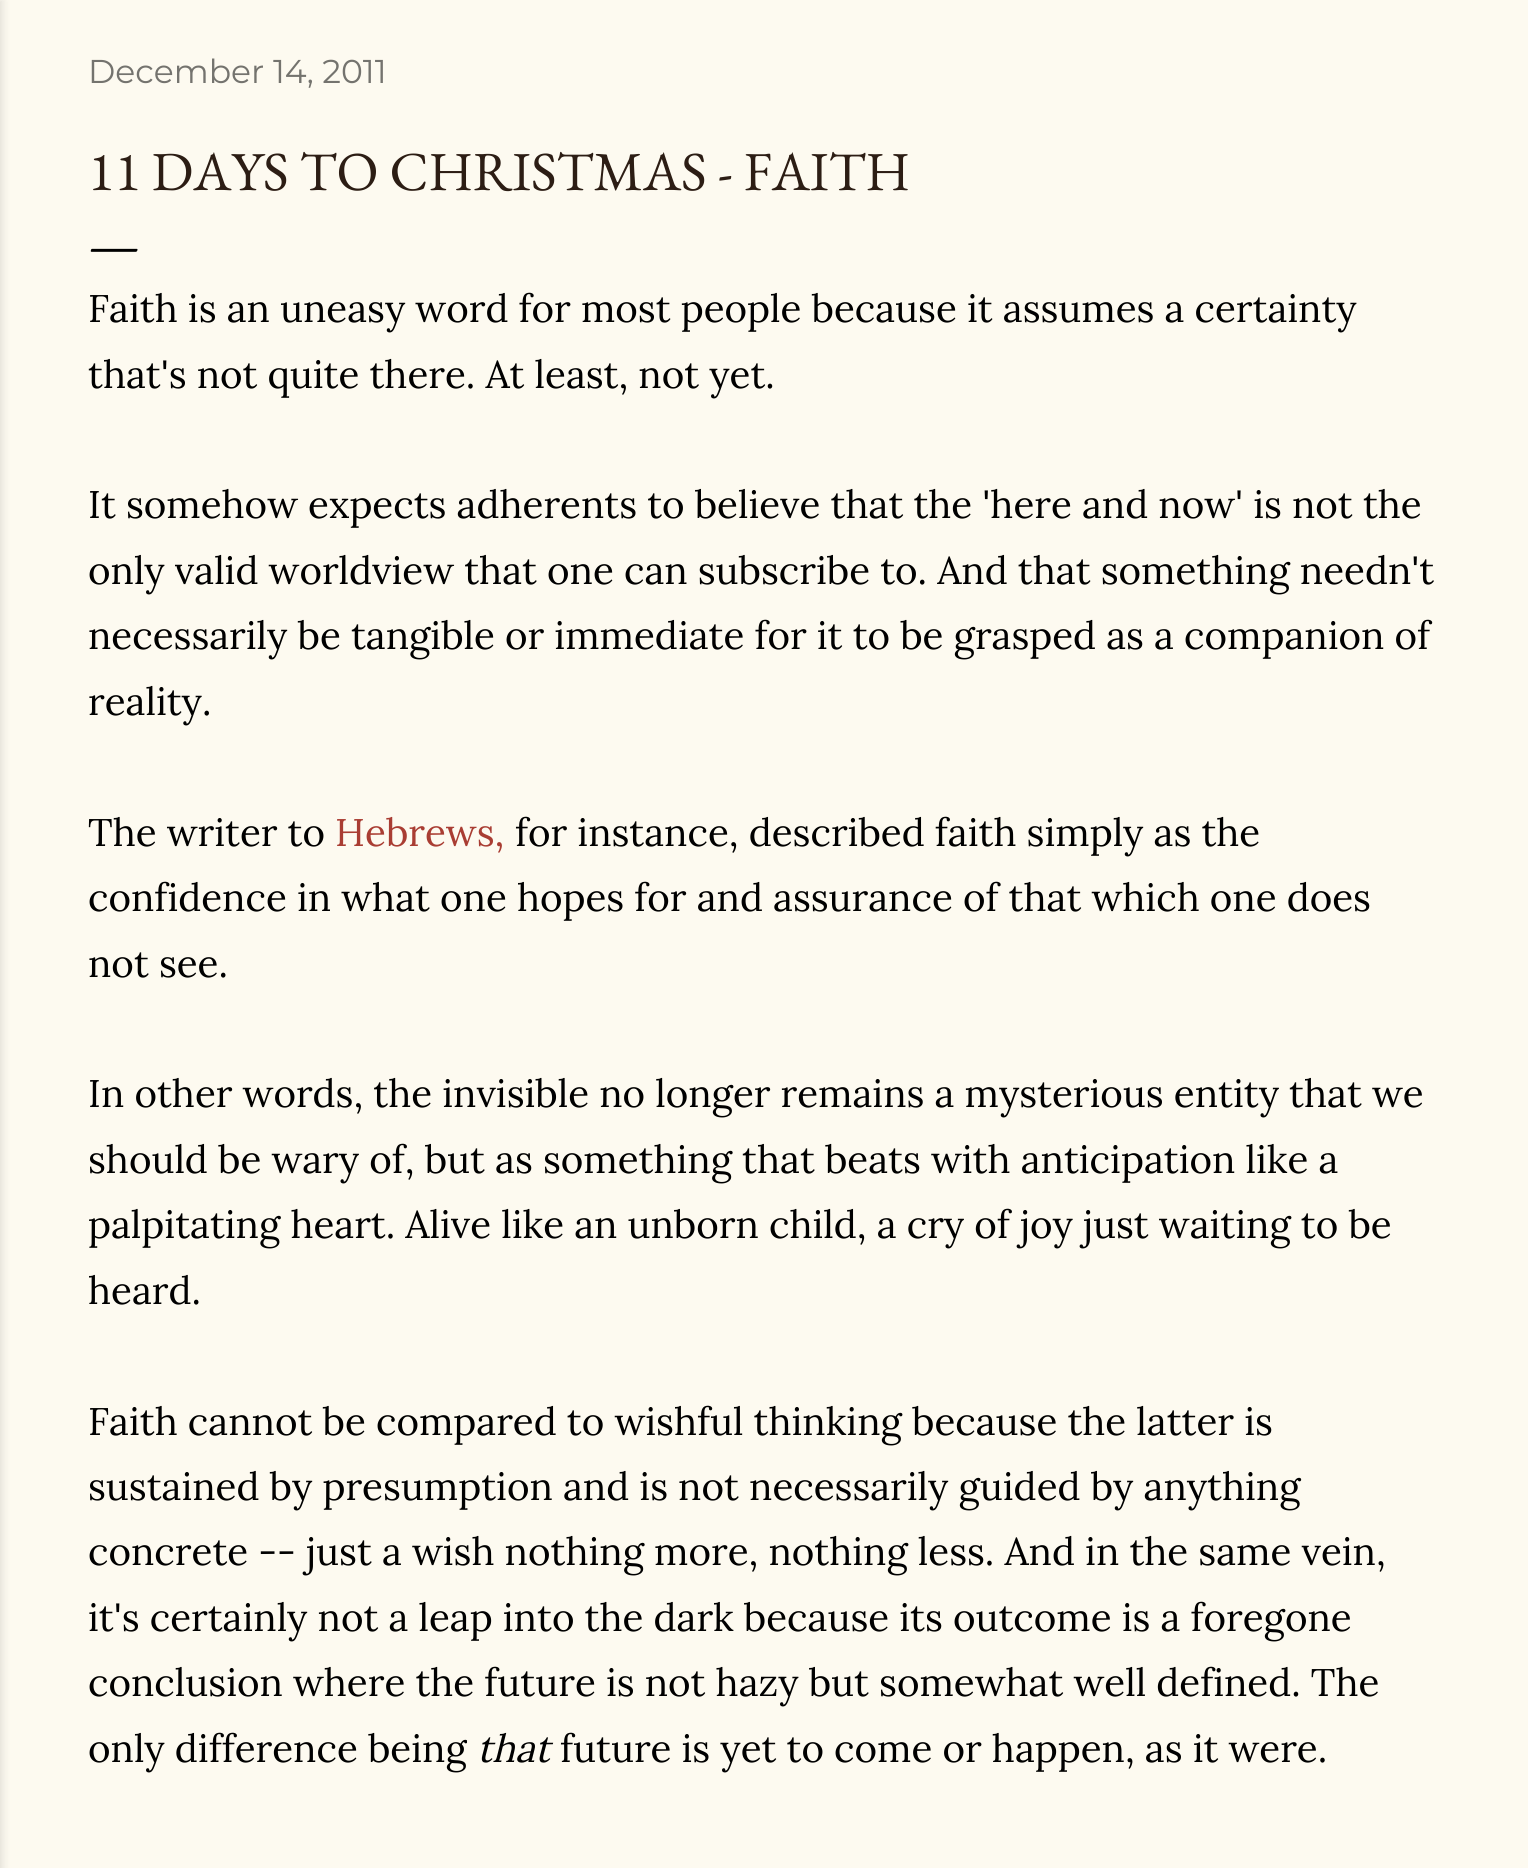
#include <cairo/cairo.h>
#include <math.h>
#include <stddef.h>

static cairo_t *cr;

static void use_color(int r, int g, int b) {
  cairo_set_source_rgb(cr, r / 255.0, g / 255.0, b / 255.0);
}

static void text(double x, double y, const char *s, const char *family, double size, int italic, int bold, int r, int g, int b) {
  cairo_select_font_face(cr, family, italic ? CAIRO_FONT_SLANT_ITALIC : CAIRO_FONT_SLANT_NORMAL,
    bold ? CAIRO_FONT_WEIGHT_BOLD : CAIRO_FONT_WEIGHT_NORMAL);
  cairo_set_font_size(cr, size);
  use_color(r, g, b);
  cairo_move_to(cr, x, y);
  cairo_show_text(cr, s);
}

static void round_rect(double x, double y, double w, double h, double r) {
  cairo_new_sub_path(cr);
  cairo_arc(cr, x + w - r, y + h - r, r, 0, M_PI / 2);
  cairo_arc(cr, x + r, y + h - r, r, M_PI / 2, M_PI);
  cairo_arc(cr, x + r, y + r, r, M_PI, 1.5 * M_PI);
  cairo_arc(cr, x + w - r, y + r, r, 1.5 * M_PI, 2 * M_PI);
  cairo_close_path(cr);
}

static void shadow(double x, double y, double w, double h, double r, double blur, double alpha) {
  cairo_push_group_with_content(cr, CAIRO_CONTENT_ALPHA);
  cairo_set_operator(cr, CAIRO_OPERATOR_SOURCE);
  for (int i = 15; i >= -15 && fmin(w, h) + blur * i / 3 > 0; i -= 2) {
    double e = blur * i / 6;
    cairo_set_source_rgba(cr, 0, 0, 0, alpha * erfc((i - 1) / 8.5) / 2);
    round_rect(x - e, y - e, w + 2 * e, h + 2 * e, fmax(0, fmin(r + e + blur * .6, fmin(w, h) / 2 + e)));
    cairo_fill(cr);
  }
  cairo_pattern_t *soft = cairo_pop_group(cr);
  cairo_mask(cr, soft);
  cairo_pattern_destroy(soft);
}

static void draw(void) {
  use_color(253, 250, 240);
  cairo_paint(cr);
  use_color(0, 0, 0);
  shadow(-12, 0, 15, 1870, 0, 4, 0.1);
  text(88, 83, "December 14, 2011", "Montserrat", 33, 0, 0, 116, 115, 110);
  text(88, 190, "11 DAYS TO CHRISTMAS - FAITH", "EB Garamond", 55, 0, 0, 44, 29, 20);
  text(88, 262, "—", "EB Garamond", 55, 0, 0, 0, 0, 0);
  text(88, 322, "Faith is an uneasy word for most people because it assumes a certainty", "Lora", 38.5, 0, 0, 0, 0, 0);
  text(88, 388, "that's not quite there. At least, not yet.", "Lora", 38.5, 0, 0, 0, 0, 0);
  text(88, 518, "It somehow expects adherents to believe that the 'here and now' is not the", "Lora", 38.5, 0, 0, 0, 0, 0);
  text(88, 584, "only valid worldview that one can subscribe to. And that something needn't", "Lora", 38.5, 0, 0, 0, 0, 0);
  text(88, 649, "necessarily be tangible or immediate for it to be grasped as a companion of", "Lora", 38.5, 0, 0, 0, 0, 0);
  text(88, 715, "reality.", "Lora", 38.5, 0, 0, 0, 0, 0);
  text(88, 846, "The writer to", "Lora", 38.5, 0, 0, 0, 0, 0);
  text(335, 846, "Hebrews,", "Lora", 38.5, 0, 0, 169, 61, 51);
  text(515, 846, "for instance, described faith simply as the", "Lora", 38.5, 0, 0, 0, 0, 0);
  text(88, 911, "confidence in what one hopes for and assurance of that which one does", "Lora", 38.5, 0, 0, 0, 0, 0);
  text(88, 977, "not see.", "Lora", 38.5, 0, 0, 0, 0, 0);
  text(88, 1107, "In other words, the invisible no longer remains a mysterious entity that we", "Lora", 38.5, 0, 0, 0, 0, 0);
  text(88, 1173, "should be wary of, but as something that beats with anticipation like a", "Lora", 38.5, 0, 0, 0, 0, 0);
  text(88, 1238, "palpitating heart. Alive like an unborn child, a cry of joy just waiting to be", "Lora", 38.5, 0, 0, 0, 0, 0);
  text(88, 1304, "heard.", "Lora", 38.5, 0, 0, 0, 0, 0);
  text(88, 1435, "Faith cannot be compared to wishful thinking because the latter is", "Lora", 38.5, 0, 0, 0, 0, 0);
  text(88, 1500, "sustained by presumption and is not necessarily guided by anything", "Lora", 38.5, 0, 0, 0, 0, 0);
  text(88, 1565, "concrete -- just a wish nothing more, nothing less. And in the same vein,", "Lora", 38.5, 0, 0, 0, 0, 0);
  text(88, 1631, "it's certainly not a leap into the dark because its outcome is a foregone", "Lora", 38.5, 0, 0, 0, 0, 0);
  text(88, 1696, "conclusion where the future is not hazy but somewhat well defined. The", "Lora", 38.5, 0, 0, 0, 0, 0);
  text(88, 1762, "only difference being", "Lora", 38.5, 0, 0, 0, 0, 0);
  text(477, 1762, "that", "Lora", 38.5, 1, 0, 0, 0, 0);
  text(560, 1762, "future is yet to come or happen, as it were.", "Lora", 38.5, 0, 0, 0, 0, 0);
}

int main(void) {
  cairo_surface_t *surface = cairo_image_surface_create(CAIRO_FORMAT_RGB24, 1528, 1868);
  cr = cairo_create(surface);
  cairo_font_options_t *options = cairo_font_options_create();
  cairo_font_options_set_hint_metrics(options, CAIRO_HINT_METRICS_OFF);
  cairo_font_options_set_hint_style(options, CAIRO_HINT_STYLE_NONE);
  cairo_set_font_options(cr, options);
  cairo_set_miter_limit(cr, 4);
  draw();
  cairo_surface_write_to_png(surface, "out.png");
  cairo_font_options_destroy(options);
  cairo_destroy(cr);
  cairo_surface_destroy(surface);
  return 0;
}
